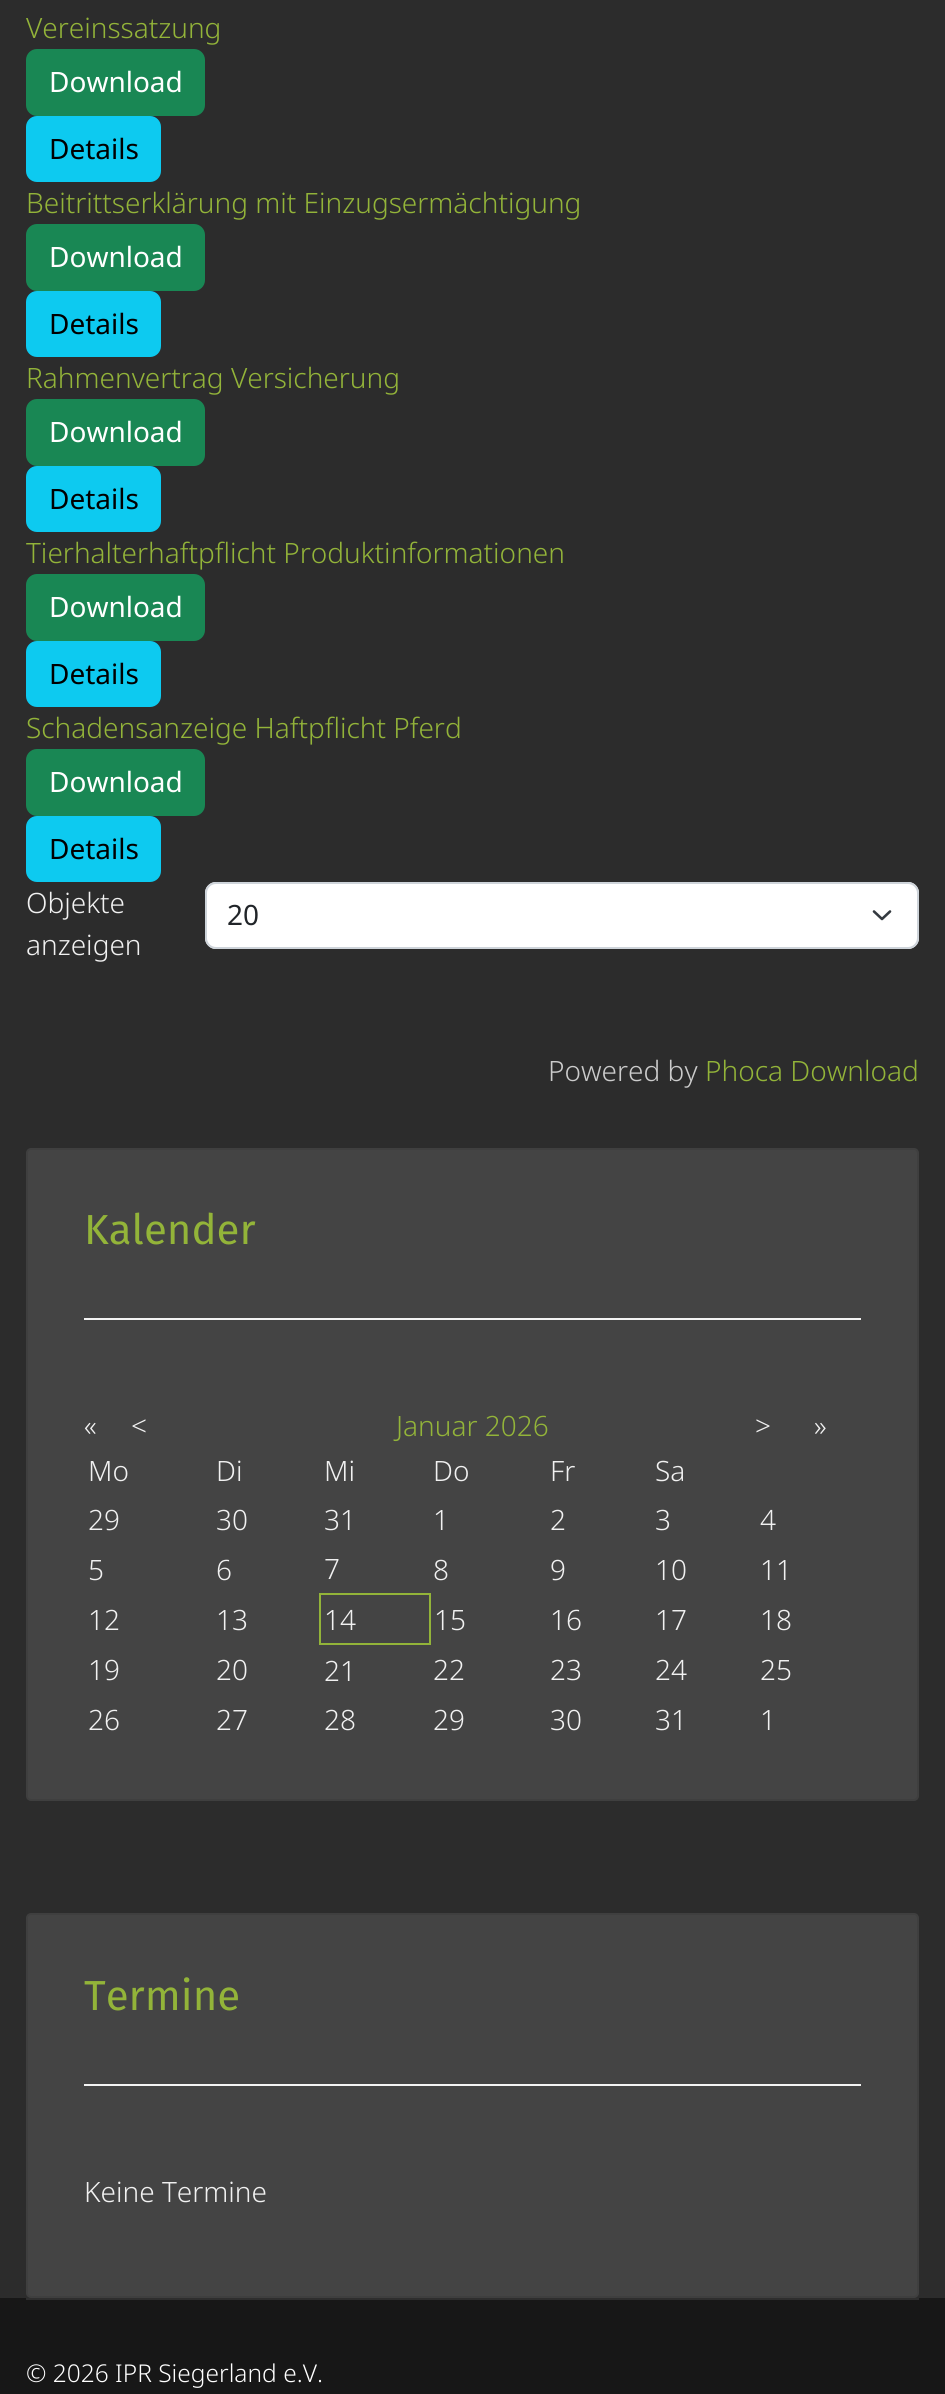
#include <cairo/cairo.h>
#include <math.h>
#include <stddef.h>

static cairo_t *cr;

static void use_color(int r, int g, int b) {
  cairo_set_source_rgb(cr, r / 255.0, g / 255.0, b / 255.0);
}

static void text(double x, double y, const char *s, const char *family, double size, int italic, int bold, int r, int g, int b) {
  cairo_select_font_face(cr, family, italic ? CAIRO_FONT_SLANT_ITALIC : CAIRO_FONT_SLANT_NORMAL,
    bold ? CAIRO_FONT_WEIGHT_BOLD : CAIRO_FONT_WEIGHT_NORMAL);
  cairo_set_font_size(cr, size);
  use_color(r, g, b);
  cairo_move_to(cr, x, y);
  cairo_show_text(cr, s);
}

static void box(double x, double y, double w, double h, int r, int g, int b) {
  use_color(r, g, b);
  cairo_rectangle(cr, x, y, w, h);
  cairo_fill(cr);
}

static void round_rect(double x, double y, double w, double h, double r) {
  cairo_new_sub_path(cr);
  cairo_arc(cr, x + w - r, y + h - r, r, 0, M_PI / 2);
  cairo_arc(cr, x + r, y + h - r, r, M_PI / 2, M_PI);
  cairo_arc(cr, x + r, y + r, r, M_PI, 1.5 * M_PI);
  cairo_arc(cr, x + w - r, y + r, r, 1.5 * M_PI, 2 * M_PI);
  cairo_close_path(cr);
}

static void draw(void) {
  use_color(44, 44, 44);
  cairo_paint(cr);
  use_color(25, 135, 84);
  round_rect(27, 50, 177, 65, 10);
  cairo_fill_preserve(cr);
  cairo_stroke(cr);
  use_color(13, 202, 240);
  round_rect(27, 117, 133, 64, 10);
  cairo_fill_preserve(cr);
  cairo_stroke(cr);
  use_color(25, 135, 84);
  round_rect(27, 225, 177, 65, 10);
  cairo_fill_preserve(cr);
  cairo_stroke(cr);
  use_color(13, 202, 240);
  round_rect(27, 292, 133, 64, 10);
  cairo_fill_preserve(cr);
  cairo_stroke(cr);
  use_color(25, 135, 84);
  round_rect(27, 400, 177, 65, 10);
  cairo_fill_preserve(cr);
  cairo_stroke(cr);
  use_color(13, 202, 240);
  round_rect(27, 467, 133, 64, 10);
  cairo_fill_preserve(cr);
  cairo_stroke(cr);
  use_color(25, 135, 84);
  round_rect(27, 575, 177, 65, 10);
  cairo_fill_preserve(cr);
  cairo_stroke(cr);
  use_color(13, 202, 240);
  round_rect(27, 642, 133, 64, 10);
  cairo_fill_preserve(cr);
  cairo_stroke(cr);
  use_color(25, 135, 84);
  round_rect(27, 750, 177, 65, 10);
  cairo_fill_preserve(cr);
  cairo_stroke(cr);
  use_color(13, 202, 240);
  round_rect(27, 817, 133, 64, 10);
  cairo_fill_preserve(cr);
  cairo_stroke(cr);
  use_color(255, 255, 255);
  round_rect(205, 882, 714, 67, 11);
  cairo_fill(cr);
  cairo_new_path(cr);
  cairo_move_to(cr, 874, 911.5);
  cairo_line_to(cr, 882, 919);
  cairo_line_to(cr, 890, 911.5);
  use_color(52, 58, 64);
  cairo_set_line_width(cr, 2.6);
  cairo_set_line_cap(cr, CAIRO_LINE_CAP_ROUND);
  cairo_set_line_join(cr, CAIRO_LINE_JOIN_ROUND);
  cairo_stroke(cr);
  round_rect(206, 883, 712, 65, 10);
  use_color(206, 212, 218);
  cairo_set_line_width(cr, 2);
  cairo_set_line_cap(cr, CAIRO_LINE_CAP_BUTT);
  cairo_set_line_join(cr, CAIRO_LINE_JOIN_MITER);
  cairo_stroke(cr);
  use_color(68, 68, 68);
  round_rect(27, 1149, 891, 651, 4);
  cairo_fill_preserve(cr);
  use_color(63, 63, 63);
  cairo_stroke(cr);
  box(84, 1318, 777, 2, 243, 243, 243);
  box(319, 1593, 112, 2, 147, 180, 57);
  box(429, 1593, 2, 52, 147, 180, 57);
  box(319, 1643, 112, 2, 147, 180, 57);
  box(319, 1593, 2, 52, 147, 180, 57);
  use_color(68, 68, 68);
  round_rect(27, 1914, 891, 383, 4);
  cairo_fill_preserve(cr);
  use_color(63, 63, 63);
  cairo_stroke(cr);
  box(84, 2084, 777, 2, 243, 243, 243);
  box(0, 2298, 945, 96, 23, 23, 23);
  box(26, 2298, 893, 2, 46, 46, 46);
  text(26, 38, "Vereinssatzung", "Noto Sans Light", 28, 0, 0, 147, 180, 57);
  text(49, 92, "Download", "Noto Sans", 28, 0, 0, 255, 255, 255);
  text(49, 159, "Details", "Noto Sans", 28, 0, 0, 0, 0, 0);
  text(26, 213, "Beitrittserklärung mit Einzugsermächtigung", "Noto Sans Light", 28, 0, 0, 147, 180, 57);
  text(49, 267, "Download", "Noto Sans", 28, 0, 0, 255, 255, 255);
  text(49, 334, "Details", "Noto Sans", 28, 0, 0, 0, 0, 0);
  text(26, 388, "Rahmenvertrag Versicherung", "Noto Sans Light", 28, 0, 0, 147, 180, 57);
  text(49, 442, "Download", "Noto Sans", 28, 0, 0, 255, 255, 255);
  text(49, 509, "Details", "Noto Sans", 28, 0, 0, 0, 0, 0);
  text(26, 563, "Tierhalterhaftpflicht Produktinformationen", "Noto Sans Light", 28, 0, 0, 147, 180, 57);
  text(49, 617, "Download", "Noto Sans", 28, 0, 0, 255, 255, 255);
  text(49, 684, "Details", "Noto Sans", 28, 0, 0, 0, 0, 0);
  text(26, 738, "Schadensanzeige Haftpflicht Pferd", "Noto Sans Light", 28, 0, 0, 147, 180, 57);
  text(49, 792, "Download", "Noto Sans", 28, 0, 0, 255, 255, 255);
  text(49, 859, "Details", "Noto Sans", 28, 0, 0, 0, 0, 0);
  text(26, 913, "Objekte", "Noto Sans Light", 28, 0, 0, 241, 241, 241);
  text(227, 925, "20", "Noto Sans", 28, 0, 0, 33, 37, 41);
  text(26, 955, "anzeigen", "Noto Sans Light", 28, 0, 0, 241, 241, 241);
  text(548, 1081, "Powered by", "Noto Sans Light", 28, 0, 0, 204, 204, 204);
  text(705, 1081, "Phoca Download", "Noto Sans Light", 28, 0, 0, 147, 180, 57);
  text(84, 1244, "Kalender", "Fira Sans", 42, 0, 0, 147, 180, 57);
  text(84, 1436, "«", "Noto Sans Light", 28, 0, 0, 241, 241, 241);
  text(131, 1436, "<", "Noto Sans Light", 28, 0, 0, 241, 241, 241);
  text(396, 1436, "Januar 2026", "Noto Sans Light", 28, 0, 0, 147, 180, 57);
  text(755, 1436, ">", "Noto Sans Light", 28, 0, 0, 241, 241, 241);
  text(814, 1436, "»", "Noto Sans Light", 28, 0, 0, 241, 241, 241);
  text(88, 1481, "Mo", "Noto Sans Light", 28, 0, 0, 241, 241, 241);
  text(216, 1481, "Di", "Noto Sans Light", 28, 0, 0, 241, 241, 241);
  text(324, 1481, "Mi", "Noto Sans Light", 28, 0, 0, 241, 241, 241);
  text(433, 1481, "Do", "Noto Sans Light", 28, 0, 0, 241, 241, 241);
  text(550, 1481, "Fr", "Noto Sans Light", 28, 0, 0, 241, 241, 241);
  text(655, 1481, "Sa", "Noto Sans Light", 28, 0, 0, 241, 241, 241);
  text(88, 1530, "29", "Noto Sans Light", 28, 0, 0, 241, 241, 241);
  text(216, 1530, "30", "Noto Sans Light", 28, 0, 0, 241, 241, 241);
  text(324, 1530, "31", "Noto Sans Light", 28, 0, 0, 241, 241, 241);
  text(433, 1530, "1", "Noto Sans Light", 28, 0, 0, 241, 241, 241);
  text(550, 1530, "2", "Noto Sans Light", 28, 0, 0, 241, 241, 241);
  text(655, 1530, "3", "Noto Sans Light", 28, 0, 0, 241, 241, 241);
  text(760, 1530, "4", "Noto Sans Light", 28, 0, 0, 241, 241, 241);
  text(88, 1580, "5", "Noto Sans Light", 28, 0, 0, 241, 241, 241);
  text(216, 1580, "6", "Noto Sans Light", 28, 0, 0, 241, 241, 241);
  text(324, 1579, "7", "Noto Sans Light", 28, 0, 0, 241, 241, 241);
  text(433, 1580, "8", "Noto Sans Light", 28, 0, 0, 241, 241, 241);
  text(550, 1580, "9", "Noto Sans Light", 28, 0, 0, 241, 241, 241);
  text(655, 1580, "10", "Noto Sans Light", 28, 0, 0, 241, 241, 241);
  text(760, 1580, "11", "Noto Sans Light", 28, 0, 0, 241, 241, 241);
  text(88, 1630, "12", "Noto Sans Light", 28, 0, 0, 241, 241, 241);
  text(216, 1630, "13", "Noto Sans Light", 28, 0, 0, 241, 241, 241);
  text(324, 1630, "14", "Noto Sans Light", 28, 0, 0, 241, 241, 241);
  text(434, 1630, "15", "Noto Sans Light", 28, 0, 0, 241, 241, 241);
  text(550, 1630, "16", "Noto Sans Light", 28, 0, 0, 241, 241, 241);
  text(655, 1630, "17", "Noto Sans Light", 28, 0, 0, 241, 241, 241);
  text(760, 1630, "18", "Noto Sans Light", 28, 0, 0, 241, 241, 241);
  text(88, 1680, "19", "Noto Sans Light", 28, 0, 0, 241, 241, 241);
  text(216, 1680, "20", "Noto Sans Light", 28, 0, 0, 241, 241, 241);
  text(324, 1681, "21", "Noto Sans Light", 28, 0, 0, 241, 241, 241);
  text(433, 1680, "22", "Noto Sans Light", 28, 0, 0, 241, 241, 241);
  text(550, 1680, "23", "Noto Sans Light", 28, 0, 0, 241, 241, 241);
  text(655, 1680, "24", "Noto Sans Light", 28, 0, 0, 241, 241, 241);
  text(760, 1680, "25", "Noto Sans Light", 28, 0, 0, 241, 241, 241);
  text(88, 1730, "26", "Noto Sans Light", 28, 0, 0, 241, 241, 241);
  text(216, 1730, "27", "Noto Sans Light", 28, 0, 0, 241, 241, 241);
  text(324, 1730, "28", "Noto Sans Light", 28, 0, 0, 241, 241, 241);
  text(433, 1730, "29", "Noto Sans Light", 28, 0, 0, 241, 241, 241);
  text(550, 1730, "30", "Noto Sans Light", 28, 0, 0, 241, 241, 241);
  text(655, 1730, "31", "Noto Sans Light", 28, 0, 0, 241, 241, 241);
  text(760, 1730, "1", "Noto Sans Light", 28, 0, 0, 241, 241, 241);
  text(84, 2010, "Termine", "Fira Sans", 42, 0, 0, 147, 180, 57);
  text(84, 2202, "Keine Termine", "Noto Sans Light", 28, 0, 0, 241, 241, 241);
  text(26, 2382, "© 2026 IPR Siegerland e.V.", "Noto Sans Light", 24.5, 0, 0, 255, 255, 255);
}

int main(void) {
  cairo_surface_t *surface = cairo_image_surface_create(CAIRO_FORMAT_RGB24, 945, 2394);
  cr = cairo_create(surface);
  cairo_font_options_t *options = cairo_font_options_create();
  cairo_font_options_set_hint_metrics(options, CAIRO_HINT_METRICS_OFF);
  cairo_font_options_set_hint_style(options, CAIRO_HINT_STYLE_NONE);
  cairo_set_font_options(cr, options);
  cairo_set_miter_limit(cr, 4);
  draw();
  cairo_surface_write_to_png(surface, "out.png");
  cairo_font_options_destroy(options);
  cairo_destroy(cr);
  cairo_surface_destroy(surface);
  return 0;
}
